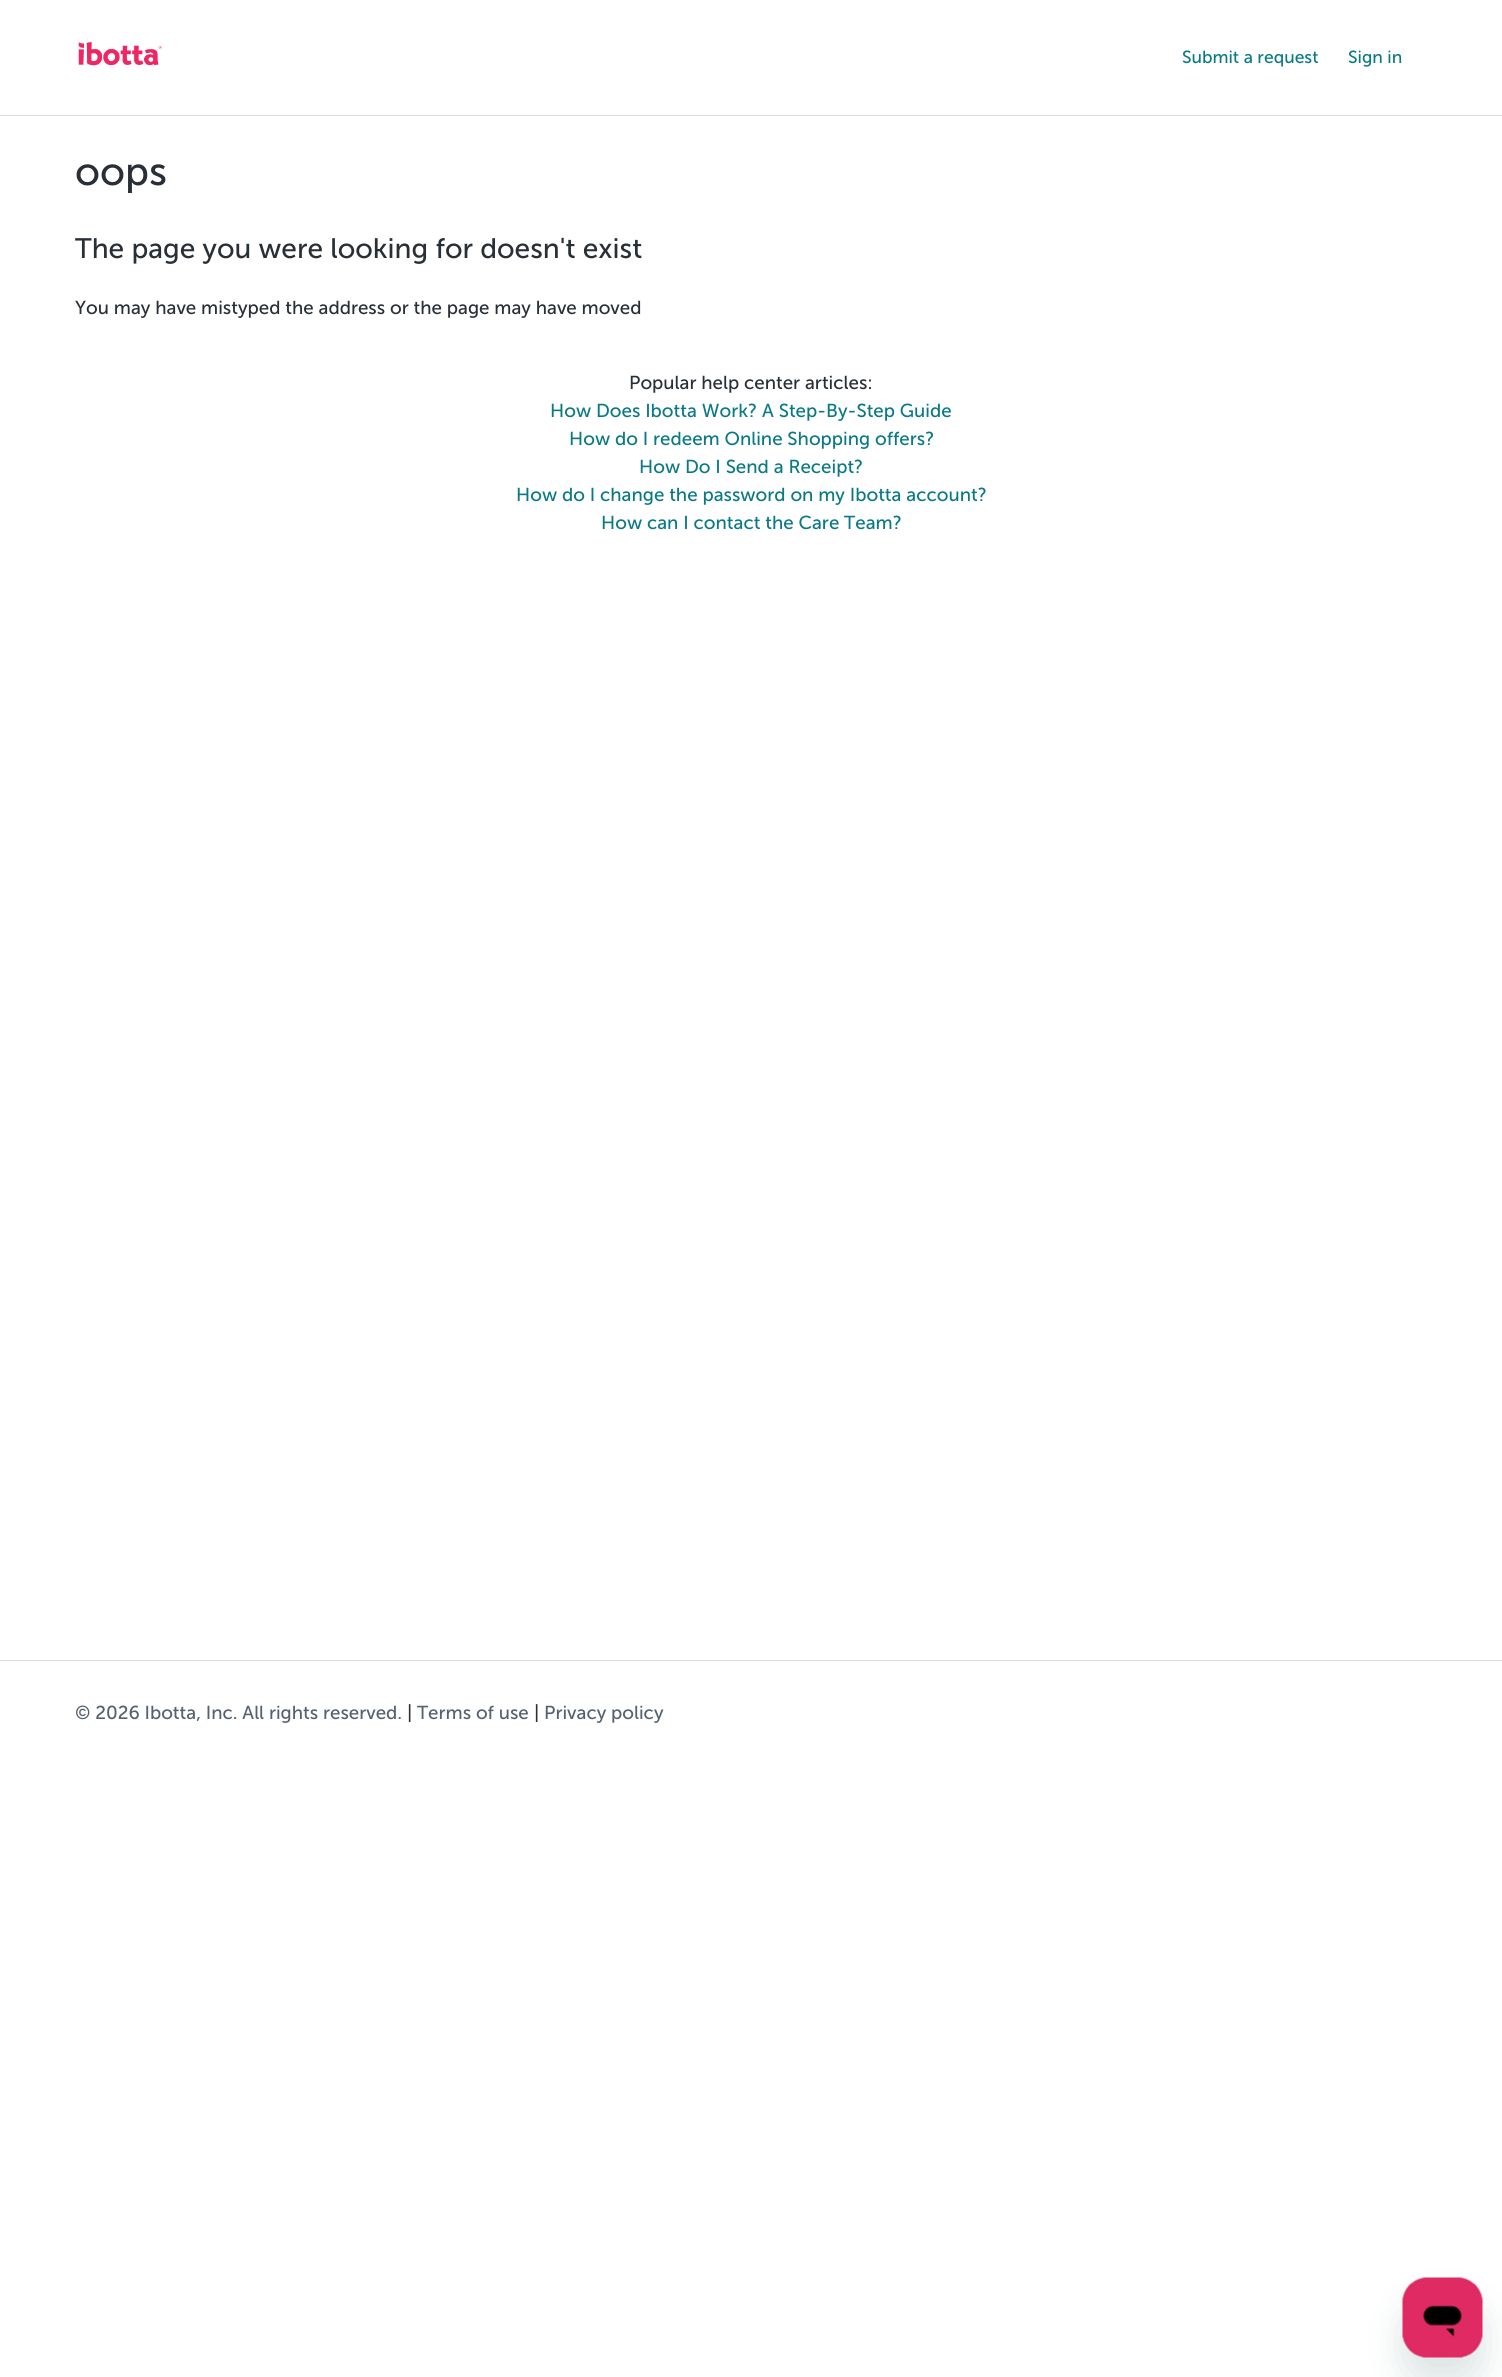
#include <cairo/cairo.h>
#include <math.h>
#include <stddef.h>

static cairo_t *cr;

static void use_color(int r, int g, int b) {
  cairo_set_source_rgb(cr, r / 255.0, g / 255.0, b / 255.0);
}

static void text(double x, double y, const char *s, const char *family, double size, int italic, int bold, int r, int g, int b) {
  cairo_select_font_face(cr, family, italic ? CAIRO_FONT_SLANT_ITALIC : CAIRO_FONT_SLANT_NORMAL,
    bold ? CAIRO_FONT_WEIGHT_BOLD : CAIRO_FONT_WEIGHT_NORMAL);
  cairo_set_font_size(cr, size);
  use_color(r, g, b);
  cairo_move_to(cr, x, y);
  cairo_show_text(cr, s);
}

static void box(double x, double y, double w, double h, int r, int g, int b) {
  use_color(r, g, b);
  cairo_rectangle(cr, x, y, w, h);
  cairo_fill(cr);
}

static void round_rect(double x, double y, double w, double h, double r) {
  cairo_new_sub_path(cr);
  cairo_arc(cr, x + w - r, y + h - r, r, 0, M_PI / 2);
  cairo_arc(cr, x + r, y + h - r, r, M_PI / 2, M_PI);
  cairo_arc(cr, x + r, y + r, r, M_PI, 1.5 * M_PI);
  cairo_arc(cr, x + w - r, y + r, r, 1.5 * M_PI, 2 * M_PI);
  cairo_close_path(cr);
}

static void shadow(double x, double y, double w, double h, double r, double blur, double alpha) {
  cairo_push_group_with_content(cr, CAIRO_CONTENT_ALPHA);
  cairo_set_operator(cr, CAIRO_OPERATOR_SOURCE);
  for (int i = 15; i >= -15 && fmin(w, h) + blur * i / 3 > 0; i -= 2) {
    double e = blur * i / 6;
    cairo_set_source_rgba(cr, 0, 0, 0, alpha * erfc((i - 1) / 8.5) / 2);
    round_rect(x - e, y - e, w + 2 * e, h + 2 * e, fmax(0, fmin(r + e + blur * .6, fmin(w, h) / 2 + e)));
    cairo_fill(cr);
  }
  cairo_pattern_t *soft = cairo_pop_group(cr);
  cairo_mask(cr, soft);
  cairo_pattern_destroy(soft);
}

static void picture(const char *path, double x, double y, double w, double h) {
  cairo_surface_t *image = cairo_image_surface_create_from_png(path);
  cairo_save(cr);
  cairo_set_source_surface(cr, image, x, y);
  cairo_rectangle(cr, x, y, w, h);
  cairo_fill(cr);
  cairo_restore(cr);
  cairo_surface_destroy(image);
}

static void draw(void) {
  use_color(255, 255, 255);
  cairo_paint(cr);
  picture("img_01.png", 78, 41, 84, 25);
  box(0, 115, 1502, 1, 221, 221, 221);
  box(0, 1660, 1502, 1, 221, 221, 221);
  use_color(23, 73, 77);
  shadow(1403, 2303, 80, 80, 25, 19, 0.15);
  picture("img_02.png", 1402, 2277, 81, 81);
  text(1182, 63, "Submit a request", "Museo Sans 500", 17.5, 0, 0, 10, 121, 134);
  text(1348, 63, "Sign in", "Museo Sans 500", 17.5, 0, 0, 10, 121, 134);
  text(75, 185, "oops", "Museo Sans 500", 40, 0, 0, 41, 47, 54);
  text(75, 258, "The page you were looking for doesn't exist", "Museo Sans 500", 28.1, 0, 0, 41, 47, 54);
  text(75, 314, "You may have mistyped the address or the page may have moved", "Museo Sans 500", 18.75, 0, 0, 41, 47, 54);
  text(629, 389, "Popular help center articles:", "Museo Sans 500", 18.75, 0, 0, 41, 47, 54);
  text(550, 417, "How Does Ibotta Work? A Step-By-Step Guide", "Museo Sans 500", 18.75, 0, 0, 10, 121, 134);
  text(569, 445, "How do I redeem Online Shopping offers?", "Museo Sans 500", 18.75, 0, 0, 10, 121, 134);
  text(639, 473, "How Do I Send a Receipt?", "Museo Sans 500", 18.75, 0, 0, 10, 121, 134);
  text(516, 501, "How do I change the password on my Ibotta account?", "Museo Sans 500", 18.75, 0, 0, 10, 121, 134);
  text(601, 529, "How can I contact the Care Team?", "Museo Sans 500", 18.75, 0, 0, 10, 121, 134);
  text(75, 1719, "© 2026 Ibotta, Inc. All rights reserved.", "Museo Sans 500", 18.75, 0, 0, 85, 97, 112);
  text(407, 1719, "|", "Museo Sans 500", 18.75, 0, 0, 41, 47, 54);
  text(417, 1719, "Terms of use", "Museo Sans 500", 18.75, 0, 0, 85, 97, 112);
  text(534, 1719, "|", "Museo Sans 500", 18.75, 0, 0, 41, 47, 54);
  text(544, 1719, "Privacy policy", "Museo Sans 500", 18.75, 0, 0, 85, 97, 112);
}

int main(void) {
  cairo_surface_t *surface = cairo_image_surface_create(CAIRO_FORMAT_RGB24, 1502, 2377);
  cr = cairo_create(surface);
  cairo_font_options_t *options = cairo_font_options_create();
  cairo_font_options_set_hint_metrics(options, CAIRO_HINT_METRICS_OFF);
  cairo_font_options_set_hint_style(options, CAIRO_HINT_STYLE_NONE);
  cairo_set_font_options(cr, options);
  cairo_set_miter_limit(cr, 4);
  draw();
  cairo_surface_write_to_png(surface, "out.png");
  cairo_font_options_destroy(options);
  cairo_destroy(cr);
  cairo_surface_destroy(surface);
  return 0;
}
